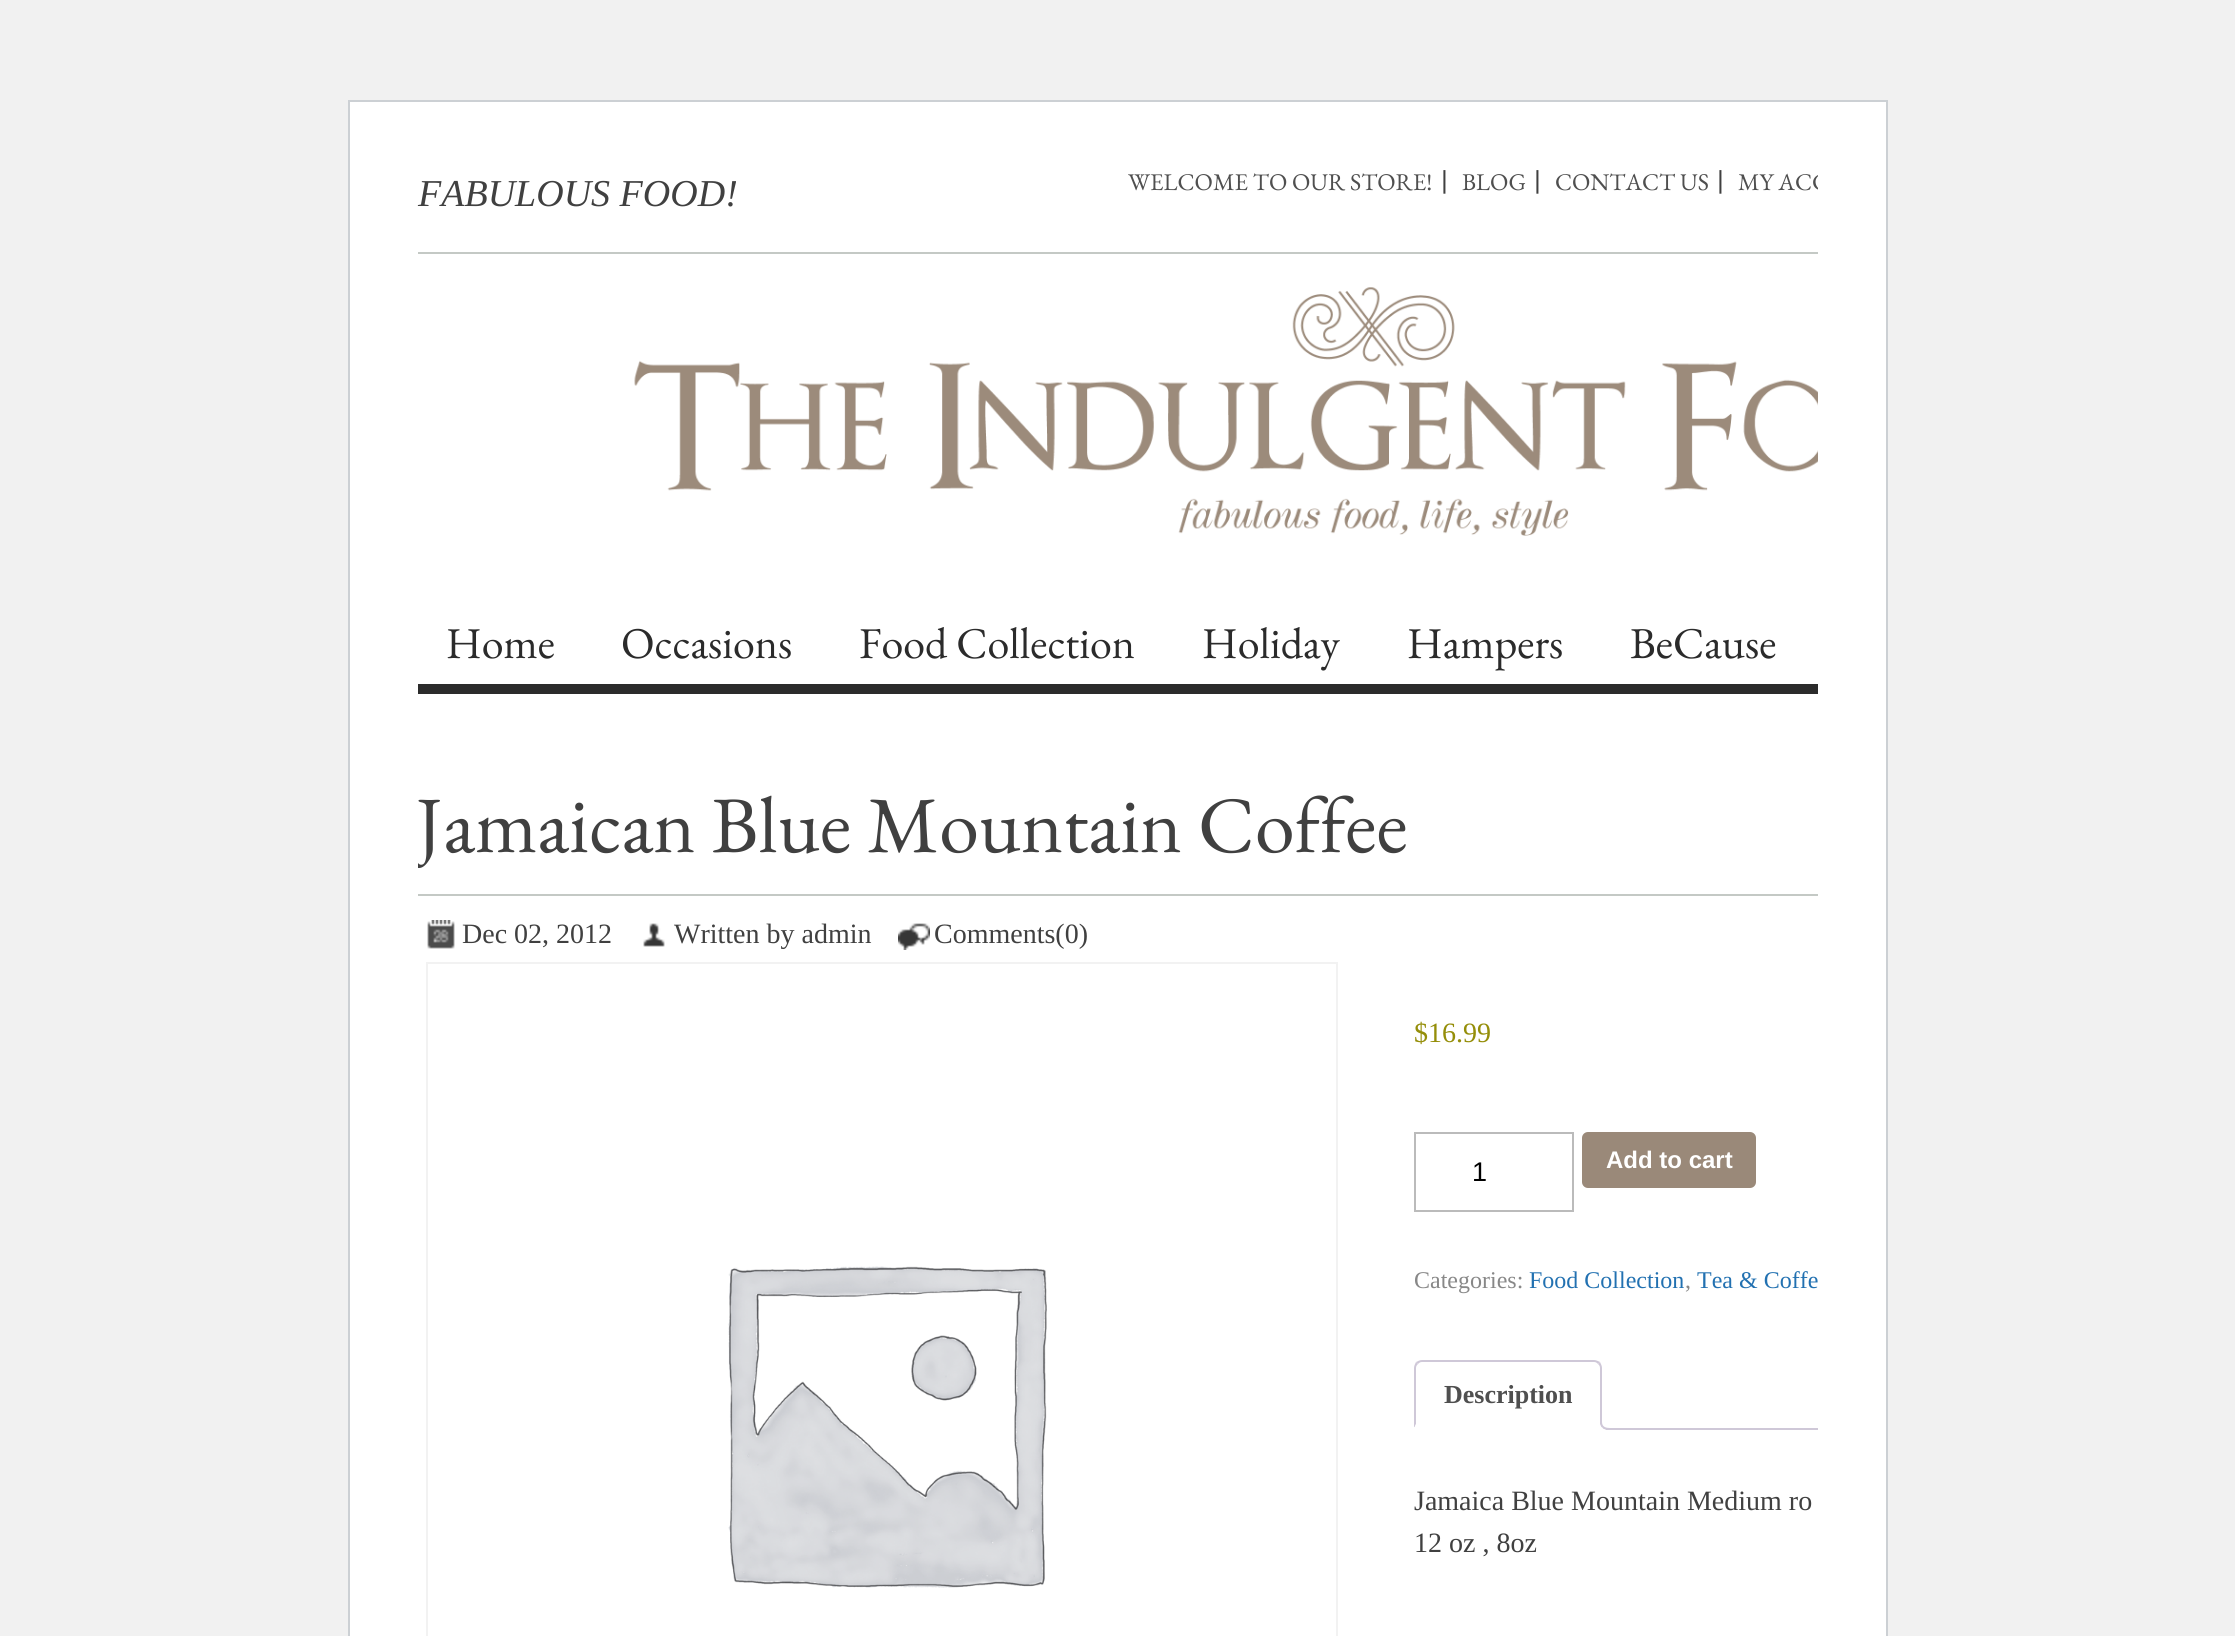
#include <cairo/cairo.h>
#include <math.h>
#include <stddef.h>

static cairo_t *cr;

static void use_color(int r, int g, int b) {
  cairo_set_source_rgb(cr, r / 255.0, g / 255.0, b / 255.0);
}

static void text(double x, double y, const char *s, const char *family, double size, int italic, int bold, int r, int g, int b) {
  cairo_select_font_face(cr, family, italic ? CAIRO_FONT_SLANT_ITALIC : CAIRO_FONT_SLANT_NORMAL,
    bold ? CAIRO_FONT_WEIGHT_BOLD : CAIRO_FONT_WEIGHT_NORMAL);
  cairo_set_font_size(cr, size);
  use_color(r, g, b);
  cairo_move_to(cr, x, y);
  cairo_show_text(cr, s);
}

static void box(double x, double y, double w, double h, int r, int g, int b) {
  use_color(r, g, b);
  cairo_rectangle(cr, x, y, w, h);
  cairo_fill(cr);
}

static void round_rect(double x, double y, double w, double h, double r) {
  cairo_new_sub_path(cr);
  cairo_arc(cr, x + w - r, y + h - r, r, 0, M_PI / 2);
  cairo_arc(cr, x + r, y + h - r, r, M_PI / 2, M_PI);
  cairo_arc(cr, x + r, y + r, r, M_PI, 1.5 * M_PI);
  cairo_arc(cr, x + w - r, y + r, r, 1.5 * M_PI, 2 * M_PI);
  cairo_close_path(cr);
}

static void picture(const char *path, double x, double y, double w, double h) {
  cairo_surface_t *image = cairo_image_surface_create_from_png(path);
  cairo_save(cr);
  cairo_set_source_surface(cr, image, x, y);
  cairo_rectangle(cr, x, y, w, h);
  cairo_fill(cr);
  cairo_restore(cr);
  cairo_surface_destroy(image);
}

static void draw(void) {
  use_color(241, 241, 241);
  cairo_paint(cr);
  use_color(255, 255, 255);
  cairo_rectangle(cr, 349, 101, 1538, 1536);
  cairo_fill_preserve(cr);
  use_color(204, 208, 212);
  cairo_stroke(cr);
  box(418, 252, 1400, 2, 196, 201, 197);
  box(418, 684, 1400, 10, 43, 43, 43);
  picture("img_01.png", 634, 287, 1184, 249);
  box(418, 894, 1400, 2, 196, 201, 197);
  picture("img_02.png", 427, 920, 28, 29);
  picture("img_03.png", 643, 923, 22, 24);
  picture("img_04.png", 898, 923, 32, 27);
  cairo_rectangle(cr, 427, 963, 910, 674);
  use_color(242, 242, 242);
  cairo_stroke(cr);
  picture("img_05.png", 728, 1266, 319, 322);
  use_color(154, 137, 121);
  round_rect(1582, 1132, 174, 56, 6);
  cairo_fill(cr);
  cairo_rectangle(cr, 1415, 1133, 158, 78);
  use_color(187, 187, 187);
  cairo_stroke(cr);
  use_color(207, 200, 216);
  cairo_new_path(cr);
  cairo_move_to(cr, 1422, 1360);
  cairo_curve_to(cr, 1420, 1360, 1418, 1361, 1416, 1362);
  cairo_line_to(cr, 1418, 1364);
  cairo_curve_to(cr, 1419, 1363, 1420, 1362, 1422, 1362);
  cairo_line_to(cr, 1594, 1362);
  cairo_curve_to(cr, 1596, 1362, 1597, 1363, 1598, 1364);
  cairo_line_to(cr, 1600, 1362);
  cairo_curve_to(cr, 1598, 1361, 1596, 1360, 1594, 1360);
  cairo_close_path(cr);
  cairo_fill(cr);
  cairo_new_path(cr);
  cairo_move_to(cr, 1602, 1430);
  cairo_line_to(cr, 1602, 1368);
  cairo_curve_to(cr, 1602, 1366, 1601, 1364, 1600, 1362);
  cairo_line_to(cr, 1598, 1364);
  cairo_curve_to(cr, 1599, 1365, 1600, 1366, 1600, 1368);
  cairo_line_to(cr, 1600, 1428);
  cairo_close_path(cr);
  cairo_fill(cr);
  use_color(255, 255, 255);
  cairo_new_path(cr);
  cairo_move_to(cr, 1602, 1430);
  cairo_line_to(cr, 1600, 1428);
  cairo_line_to(cr, 1416, 1428);
  cairo_line_to(cr, 1414, 1430);
  cairo_close_path(cr);
  cairo_fill(cr);
  use_color(207, 200, 216);
  cairo_new_path(cr);
  cairo_move_to(cr, 1414, 1430);
  cairo_line_to(cr, 1416, 1428);
  cairo_line_to(cr, 1416, 1368);
  cairo_curve_to(cr, 1416, 1366, 1417, 1365, 1418, 1364);
  cairo_line_to(cr, 1416, 1362);
  cairo_curve_to(cr, 1415, 1364, 1414, 1366, 1414, 1368);
  cairo_close_path(cr);
  cairo_fill(cr);
  cairo_save(cr);
  cairo_rectangle(cr, 1414, 1360, 404, 70);
  cairo_clip(cr);
  use_color(255, 255, 255);
  cairo_new_path(cr);
  cairo_move_to(cr, 1410, 1429.5);
  cairo_line_to(cr, 1410, 1434);
  cairo_curve_to(cr, 1417, 1434, 1420, 1431, 1420, 1424);
  cairo_line_to(cr, 1415.5, 1424);
  cairo_curve_to(cr, 1415, 1427, 1413, 1429, 1410, 1429.5);
  cairo_close_path(cr);
  cairo_fill(cr);
  use_color(207, 200, 216);
  cairo_set_fill_rule(cr, CAIRO_FILL_RULE_EVEN_ODD);
  cairo_new_path(cr);
  cairo_move_to(cr, 1406, 1420);
  cairo_line_to(cr, 1416, 1420);
  cairo_curve_to(cr, 1416, 1427, 1413, 1430, 1406, 1430);
  cairo_close_path(cr);
  cairo_move_to(cr, 1406, 1420);
  cairo_line_to(cr, 1414, 1420);
  cairo_curve_to(cr, 1414, 1426, 1412, 1428, 1406, 1428);
  cairo_close_path(cr);
  cairo_fill(cr);
  cairo_restore(cr);
  box(1602, 1428, 216, 2, 207, 200, 216);
  cairo_save(cr);
  cairo_rectangle(cr, 1414, 1360, 404, 70);
  cairo_clip(cr);
  use_color(255, 255, 255);
  cairo_new_path(cr);
  cairo_move_to(cr, 1596, 1424);
  cairo_curve_to(cr, 1596, 1431, 1599, 1434, 1606, 1434);
  cairo_line_to(cr, 1606, 1429.5);
  cairo_curve_to(cr, 1603, 1429, 1601, 1427, 1600.5, 1424);
  cairo_close_path(cr);
  cairo_fill(cr);
  cairo_restore(cr);
  cairo_set_fill_rule(cr, CAIRO_FILL_RULE_EVEN_ODD);
  cairo_new_path(cr);
  cairo_move_to(cr, 1600, 1420);
  cairo_line_to(cr, 1610, 1420);
  cairo_line_to(cr, 1610, 1430);
  cairo_curve_to(cr, 1605, 1430, 1600, 1428, 1600, 1422);
  cairo_close_path(cr);
  cairo_move_to(cr, 1602, 1420);
  cairo_line_to(cr, 1610, 1420);
  cairo_line_to(cr, 1610, 1428);
  cairo_curve_to(cr, 1606, 1428, 1602, 1427, 1602, 1422);
  cairo_close_path(cr);
  cairo_fill(cr);
  text(418, 206, "FABULOUS FOOD!", "Liberation Serif", 38, 1, 0, 64, 64, 64);
  text(1128, 190, "WELCOME TO OUR STORE!", "EB Garamond", 24, 0, 0, 79, 79, 79);
  text(1441, 190, "|", "Roboto", 28, 0, 0, 64, 64, 64);
  text(1462, 190, "BLOG", "EB Garamond", 24, 0, 0, 79, 79, 79);
  text(1534, 190, "|", "Roboto", 28, 0, 0, 64, 64, 64);
  text(1555, 190, "CONTACT US", "EB Garamond", 24, 0, 0, 79, 79, 79);
  text(1717, 190, "|", "Roboto", 28, 0, 0, 64, 64, 64);
  cairo_save(cr);
  cairo_set_fill_rule(cr, CAIRO_FILL_RULE_WINDING);
  cairo_rectangle(cr, 418, 136, 1400, 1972);
  cairo_clip(cr);
  text(1738, 190, "MY ACC", "EB Garamond", 24, 0, 0, 79, 79, 79);
  cairo_restore(cr);
  text(446, 658, "Home", "EB Garamond", 44, 0, 0, 43, 43, 43);
  text(621, 658, "Occasions", "EB Garamond", 44, 0, 0, 43, 43, 43);
  text(859, 658, "Food Collection", "EB Garamond", 44, 0, 0, 43, 43, 43);
  text(1202, 658, "Holiday", "EB Garamond", 44, 0, 0, 43, 43, 43);
  text(1407, 658, "Hampers", "EB Garamond", 44, 0, 0, 43, 43, 43);
  text(1630, 658, "BeCause", "EB Garamond", 44, 0, 0, 43, 43, 43);
  cairo_save(cr);
  cairo_set_fill_rule(cr, CAIRO_FILL_RULE_WINDING);
  cairo_rectangle(cr, 418, 754, 1400, 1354);
  cairo_clip(cr);
  text(416, 852, "Jamaican Blue Mountain Coffee", "EB Garamond", 80, 0, 0, 64, 64, 64);
  cairo_restore(cr);
  text(462, 943, "Dec 02, 2012", "Liberation Serif", 28, 0, 0, 64, 64, 64);
  text(674, 943, "Written by admin", "Liberation Serif", 28, 0, 0, 64, 64, 64);
  text(934, 943, "Comments(0)", "Liberation Serif", 28, 0, 0, 64, 64, 64);
  text(1414, 1042, "$16.99", "Liberation Serif", 28, 0, 0, 149, 142, 9);
  text(1606, 1168, "Add to cart", "Liberation Sans", 24, 0, 1, 255, 255, 255);
  text(1472, 1181, "1", "Liberation Sans", 27, 0, 0, 0, 0, 0);
  text(1414, 1288, "Categories:", "Liberation Serif", 24, 0, 0, 136, 136, 136);
  text(1529, 1288, "Food Collection", "Liberation Serif", 24, 0, 0, 34, 113, 177);
  text(1685, 1288, ",", "Liberation Serif", 24, 0, 0, 136, 136, 136);
  text(1697, 1288, "Tea & Coffe", "Liberation Serif", 24, 0, 0, 34, 113, 177);
  text(1444, 1403, "Description", "Liberation Serif", 26, 0, 1, 79, 79, 79);
  text(1414, 1510, "Jamaica Blue Mountain Medium ro", "Liberation Serif", 28, 0, 0, 64, 64, 64);
  text(1414, 1552, "12 oz , 8oz", "Liberation Serif", 28, 0, 0, 64, 64, 64);
}

int main(void) {
  cairo_surface_t *surface = cairo_image_surface_create(CAIRO_FORMAT_RGB24, 2235, 1636);
  cr = cairo_create(surface);
  cairo_font_options_t *options = cairo_font_options_create();
  cairo_font_options_set_hint_metrics(options, CAIRO_HINT_METRICS_OFF);
  cairo_font_options_set_hint_style(options, CAIRO_HINT_STYLE_NONE);
  cairo_set_font_options(cr, options);
  cairo_set_miter_limit(cr, 4);
  draw();
  cairo_surface_write_to_png(surface, "out.png");
  cairo_font_options_destroy(options);
  cairo_destroy(cr);
  cairo_surface_destroy(surface);
  return 0;
}
